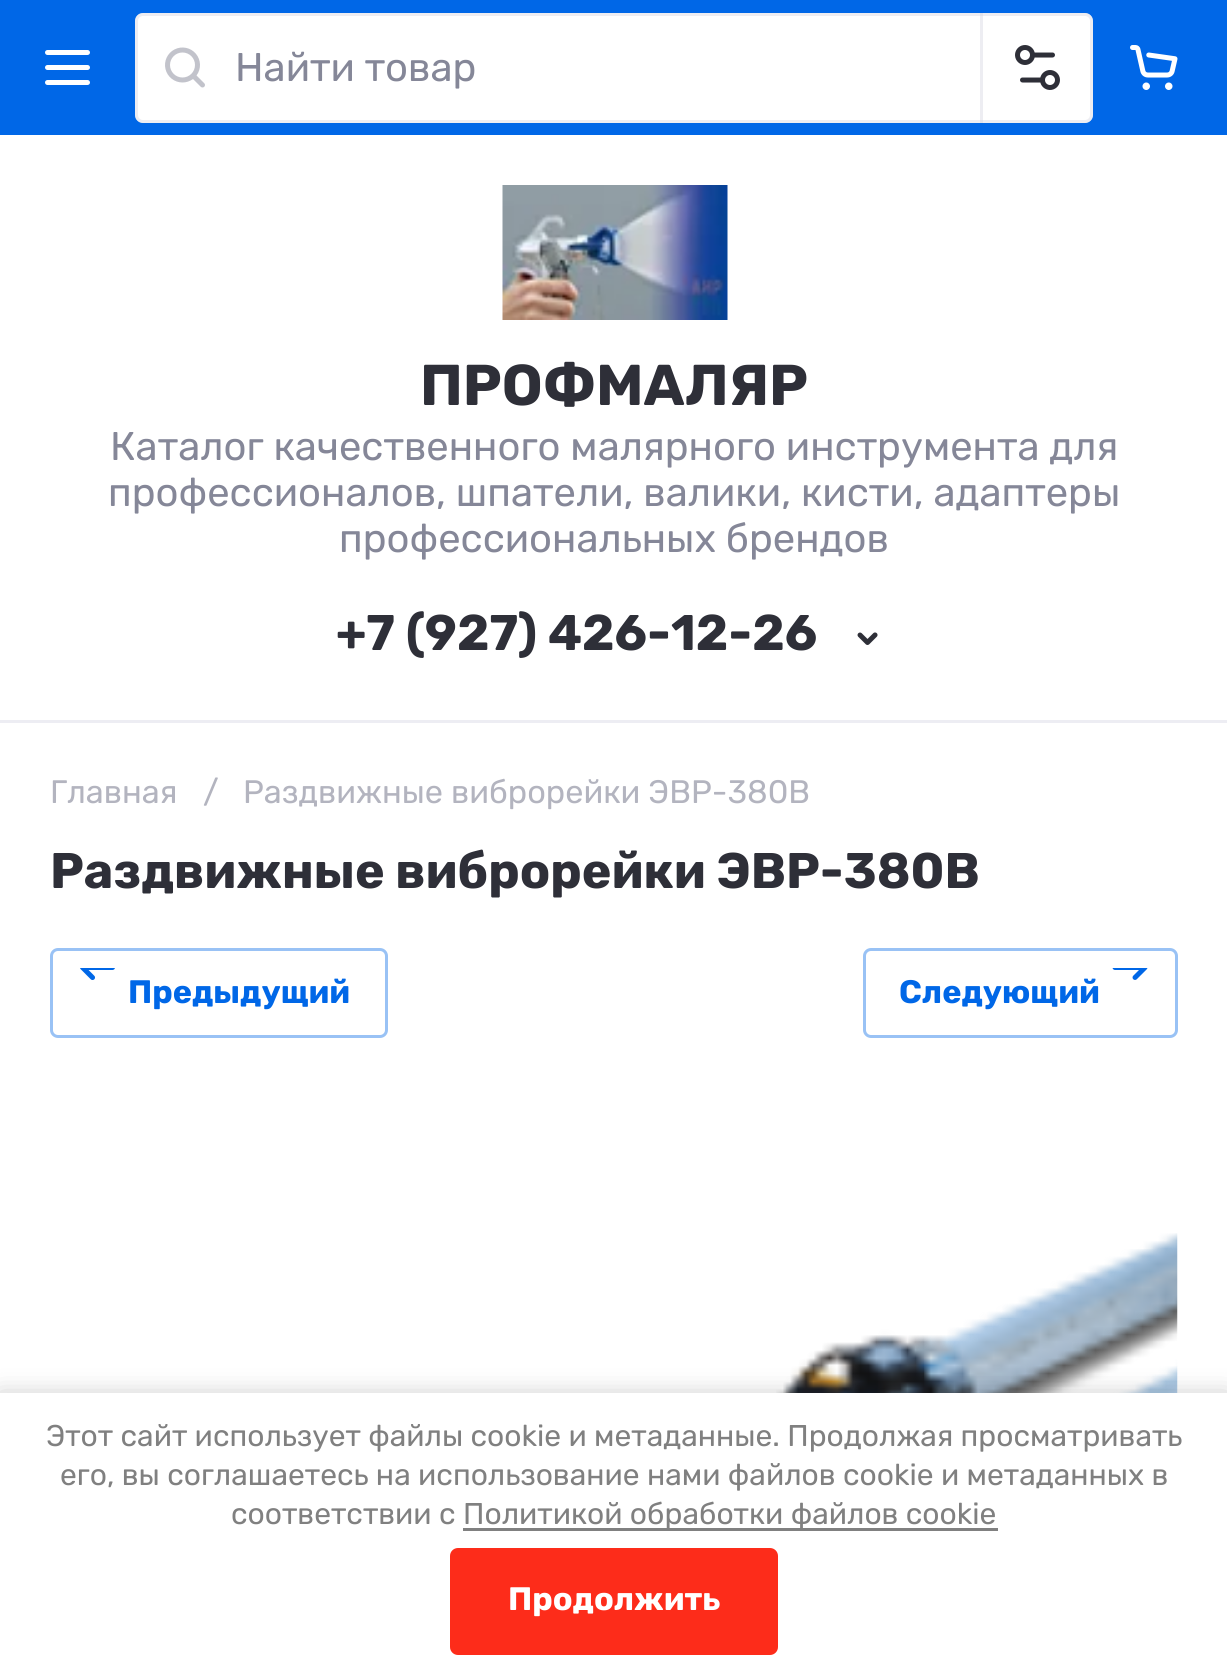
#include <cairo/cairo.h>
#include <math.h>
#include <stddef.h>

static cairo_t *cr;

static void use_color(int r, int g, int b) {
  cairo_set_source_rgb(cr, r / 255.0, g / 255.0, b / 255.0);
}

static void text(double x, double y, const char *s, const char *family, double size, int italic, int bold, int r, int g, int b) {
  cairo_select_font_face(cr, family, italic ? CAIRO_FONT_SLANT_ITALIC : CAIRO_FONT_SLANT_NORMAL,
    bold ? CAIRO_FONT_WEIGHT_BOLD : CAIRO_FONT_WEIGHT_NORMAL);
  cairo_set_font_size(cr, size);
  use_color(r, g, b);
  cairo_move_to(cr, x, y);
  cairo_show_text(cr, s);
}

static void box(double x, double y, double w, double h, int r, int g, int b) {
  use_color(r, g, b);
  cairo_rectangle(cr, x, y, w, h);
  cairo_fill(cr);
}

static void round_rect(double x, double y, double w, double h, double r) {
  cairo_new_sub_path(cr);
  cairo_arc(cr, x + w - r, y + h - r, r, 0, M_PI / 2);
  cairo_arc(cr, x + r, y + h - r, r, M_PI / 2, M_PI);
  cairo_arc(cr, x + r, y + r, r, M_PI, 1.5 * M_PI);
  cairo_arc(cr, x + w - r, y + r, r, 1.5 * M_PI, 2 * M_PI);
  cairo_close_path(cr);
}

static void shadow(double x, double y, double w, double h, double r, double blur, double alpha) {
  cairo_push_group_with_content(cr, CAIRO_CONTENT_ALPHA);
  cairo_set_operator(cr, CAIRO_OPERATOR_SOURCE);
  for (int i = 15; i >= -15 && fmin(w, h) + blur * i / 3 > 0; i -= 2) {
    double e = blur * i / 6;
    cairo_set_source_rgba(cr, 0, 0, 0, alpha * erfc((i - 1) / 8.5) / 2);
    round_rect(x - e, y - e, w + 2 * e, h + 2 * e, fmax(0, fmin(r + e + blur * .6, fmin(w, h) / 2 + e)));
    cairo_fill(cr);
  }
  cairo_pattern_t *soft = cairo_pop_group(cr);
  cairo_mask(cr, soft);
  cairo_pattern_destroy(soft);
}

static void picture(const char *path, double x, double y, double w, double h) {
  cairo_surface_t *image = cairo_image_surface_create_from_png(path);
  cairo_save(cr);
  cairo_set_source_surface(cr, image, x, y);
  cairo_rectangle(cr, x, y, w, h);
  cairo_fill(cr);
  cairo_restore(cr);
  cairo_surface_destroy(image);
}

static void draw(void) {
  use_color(255, 255, 255);
  cairo_paint(cr);
  box(0, 0, 1227, 135, 0, 103, 231);
  picture("img_01.png", 45, 50, 45, 35);
  use_color(255, 255, 255);
  round_rect(135, 13, 958, 110, 8);
  cairo_fill(cr);
  round_rect(136.5, 14.5, 955, 107, 6.5);
  cairo_set_source_rgba(cr, 0.824, 0.827, 0.878, 0.4);
  cairo_set_line_width(cr, 3);
  cairo_stroke(cr);
  picture("img_02.png", 165, 47, 40, 41);
  cairo_rectangle(cr, 980, 13, 3, 110);
  cairo_fill(cr);
  picture("img_03.png", 1015, 45, 45, 45);
  picture("img_04.png", 1130, 45, 48, 45);
  box(0, 720, 1227, 3, 237, 237, 243);
  picture("img_05.png", 502, 185, 226, 135);
  picture("img_06.png", 857, 632, 21, 13);
  round_rect(51.5, 949.5, 335, 87, 6.5);
  use_color(153, 194, 245);
  cairo_stroke(cr);
  picture("img_07.png", 80, 968, 35, 12);
  round_rect(864.5, 949.5, 312, 87, 6.5);
  cairo_stroke(cr);
  picture("img_08.png", 1112, 968, 36, 12);
  picture("img_09.png", 776, 1233, 402, 160);
  use_color(0, 0, 0);
  shadow(0, 1395, 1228, 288, 0, 12.5, 0.23);
  box(0, 1393, 1227, 286, 255, 255, 255);
  box(463, 1528, 535, 3, 128, 128, 128);
  use_color(253, 44, 26);
  round_rect(450, 1548, 328, 107, 8);
  cairo_fill(cr);
  text(235, 81, "Найти товар", "Rubik", 40, 0, 0, 133, 135, 152);
  text(420, 405, "ПРОФМАЛЯР", "Rubik", 57.5, 0, 1, 46, 47, 56);
  text(110, 460, "Каталог качественного малярного инструмента для", "Rubik", 40, 0, 0, 133, 135, 152);
  text(108, 506, "профессионалов, шпатели, валики, кисти, адаптеры", "Rubik", 40, 0, 0, 133, 135, 152);
  text(339, 552, "профессиональных брендов", "Rubik", 40, 0, 0, 133, 135, 152);
  text(336, 650, "+7 (927) 426-12-26", "Rubik", 50, 0, 1, 46, 47, 56);
  text(50, 803, "Главная", "Rubik", 32.5, 0, 0, 179, 180, 191);
  text(203, 803, "/", "Rubik", 32.5, 0, 0, 179, 180, 191);
  text(243, 803, "Раздвижные виброрейки ЭВР-380В", "Rubik", 32.5, 0, 0, 179, 180, 191);
  text(50, 888, "Раздвижные виброрейки ЭВР-380В", "Rubik", 50, 0, 1, 46, 47, 56);
  text(128, 1003, "Предыдущий", "Rubik", 32.5, 0, 1, 0, 103, 231);
  text(899, 1003, "Следующий", "Rubik", 32.5, 0, 1, 0, 103, 231);
  text(46, 1446, "Этот сайт использует файлы cookie и метаданные. Продолжая просматривать", "Rubik", 30, 0, 0, 128, 128, 128);
  text(60, 1485, "его, вы соглашаетесь на использование нами файлов cookie и метаданных в", "Rubik", 30, 0, 0, 128, 128, 128);
  text(231, 1524, "соответствии с", "Rubik", 30, 0, 0, 128, 128, 128);
  text(463, 1524, "Политикой обработки файлов cookie", "Rubik", 30, 0, 0, 128, 128, 128);
  text(508, 1610, "Продолжить", "Rubik", 32.5, 0, 1, 255, 255, 255);
}

int main(void) {
  cairo_surface_t *surface = cairo_image_surface_create(CAIRO_FORMAT_RGB24, 1227, 1679);
  cr = cairo_create(surface);
  cairo_font_options_t *options = cairo_font_options_create();
  cairo_font_options_set_hint_metrics(options, CAIRO_HINT_METRICS_OFF);
  cairo_font_options_set_hint_style(options, CAIRO_HINT_STYLE_NONE);
  cairo_set_font_options(cr, options);
  cairo_set_miter_limit(cr, 4);
  draw();
  cairo_surface_write_to_png(surface, "out.png");
  cairo_font_options_destroy(options);
  cairo_destroy(cr);
  cairo_surface_destroy(surface);
  return 0;
}
